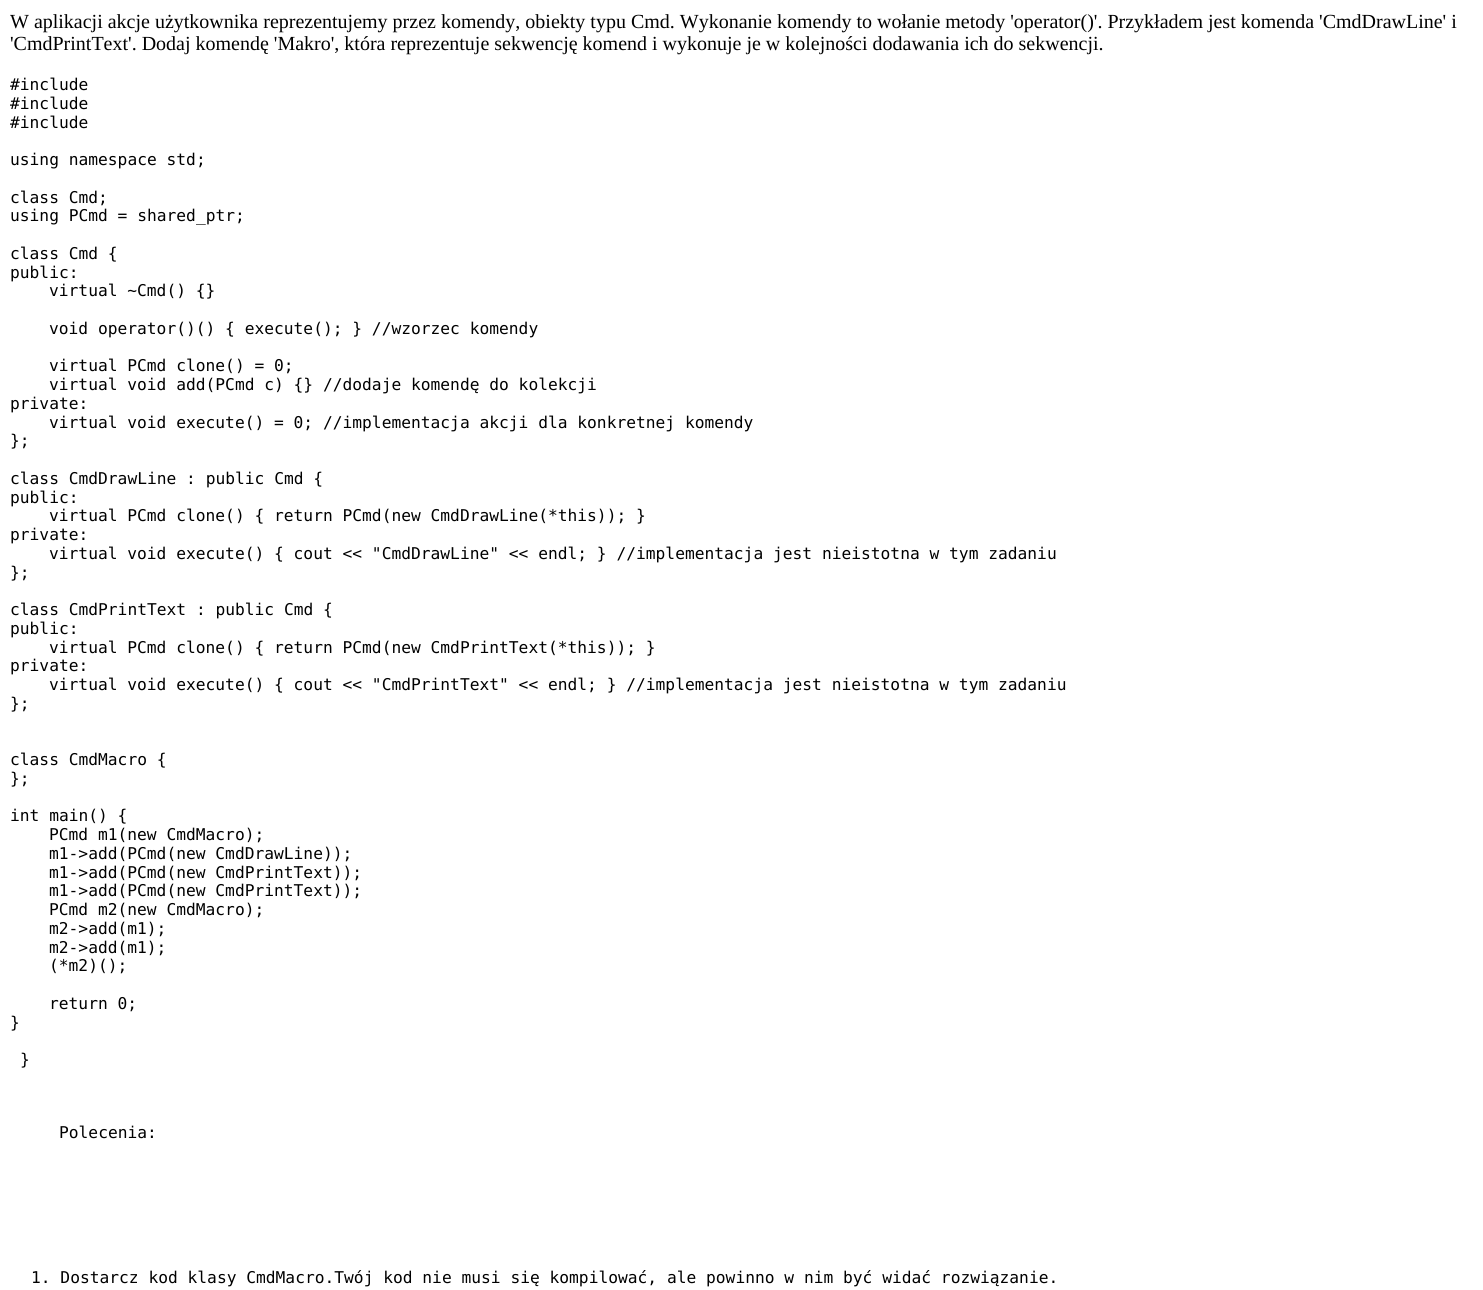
#include <cairo/cairo.h>
#include <math.h>
#include <stddef.h>

static cairo_t *cr;

static void use_color(int r, int g, int b) {
  cairo_set_source_rgb(cr, r / 255.0, g / 255.0, b / 255.0);
}

static void text(double x, double y, const char *s, const char *family, double size, int italic, int bold, int r, int g, int b) {
  cairo_select_font_face(cr, family, italic ? CAIRO_FONT_SLANT_ITALIC : CAIRO_FONT_SLANT_NORMAL,
    bold ? CAIRO_FONT_WEIGHT_BOLD : CAIRO_FONT_WEIGHT_NORMAL);
  cairo_set_font_size(cr, size);
  use_color(r, g, b);
  cairo_move_to(cr, x, y);
  cairo_show_text(cr, s);
}

static void draw(void) {
  use_color(255, 255, 255);
  cairo_paint(cr);
  text(10, 28, "W aplikacji akcje użytkownika reprezentujemy przez komendy, obiekty typu Cmd. Wykonanie komendy to wołanie metody 'operator()'. Przykładem jest komenda 'CmdDrawLine' i", "Liberation Serif", 20, 0, 0, 0, 0, 0);
  text(10, 50, "'CmdPrintText'. Dodaj komendę 'Makro', która reprezentuje sekwencję komend i wykonuje je w kolejności dodawania ich do sekwencji.", "Liberation Serif", 20, 0, 0, 0, 0, 0);
  text(10, 90, "#include", "DejaVu Sans Mono", 16.25, 0, 0, 0, 0, 0);
  text(10, 109, "#include", "DejaVu Sans Mono", 16.25, 0, 0, 0, 0, 0);
  text(10, 128, "#include", "DejaVu Sans Mono", 16.25, 0, 0, 0, 0, 0);
  text(10, 165, "using namespace std;", "DejaVu Sans Mono", 16.25, 0, 0, 0, 0, 0);
  text(10, 203, "class Cmd;", "DejaVu Sans Mono", 16.25, 0, 0, 0, 0, 0);
  text(10, 221, "using PCmd = shared_ptr;", "DejaVu Sans Mono", 16.25, 0, 0, 0, 0, 0);
  text(10, 259, "class Cmd {", "DejaVu Sans Mono", 16.25, 0, 0, 0, 0, 0);
  text(10, 278, "public:", "DejaVu Sans Mono", 16.25, 0, 0, 0, 0, 0);
  text(49, 296, "virtual ~Cmd() {}", "DejaVu Sans Mono", 16.25, 0, 0, 0, 0, 0);
  text(49, 334, "void operator()() { execute(); } //wzorzec komendy", "DejaVu Sans Mono", 16.25, 0, 0, 0, 0, 0);
  text(49, 371, "virtual PCmd clone() = 0;", "DejaVu Sans Mono", 16.25, 0, 0, 0, 0, 0);
  text(49, 390, "virtual void add(PCmd c) {} //dodaje komendę do kolekcji", "DejaVu Sans Mono", 16.25, 0, 0, 0, 0, 0);
  text(10, 409, "private:", "DejaVu Sans Mono", 16.25, 0, 0, 0, 0, 0);
  text(49, 428, "virtual void execute() = 0; //implementacja akcji dla konkretnej komendy", "DejaVu Sans Mono", 16.25, 0, 0, 0, 0, 0);
  text(10, 446, "};", "DejaVu Sans Mono", 16.25, 0, 0, 0, 0, 0);
  text(10, 484, "class CmdDrawLine : public Cmd {", "DejaVu Sans Mono", 16.25, 0, 0, 0, 0, 0);
  text(10, 503, "public:", "DejaVu Sans Mono", 16.25, 0, 0, 0, 0, 0);
  text(49, 521, "virtual PCmd clone() { return PCmd(new CmdDrawLine(*this)); }", "DejaVu Sans Mono", 16.25, 0, 0, 0, 0, 0);
  text(10, 540, "private:", "DejaVu Sans Mono", 16.25, 0, 0, 0, 0, 0);
  text(49, 559, "virtual void execute() { cout << \"CmdDrawLine\" << endl; } //implementacja jest nieistotna w tym zadaniu", "DejaVu Sans Mono", 16.25, 0, 0, 0, 0, 0);
  text(10, 578, "};", "DejaVu Sans Mono", 16.25, 0, 0, 0, 0, 0);
  text(10, 615, "class CmdPrintText : public Cmd {", "DejaVu Sans Mono", 16.25, 0, 0, 0, 0, 0);
  text(10, 634, "public:", "DejaVu Sans Mono", 16.25, 0, 0, 0, 0, 0);
  text(49, 653, "virtual PCmd clone() { return PCmd(new CmdPrintText(*this)); }", "DejaVu Sans Mono", 16.25, 0, 0, 0, 0, 0);
  text(10, 671, "private:", "DejaVu Sans Mono", 16.25, 0, 0, 0, 0, 0);
  text(49, 690, "virtual void execute() { cout << \"CmdPrintText\" << endl; } //implementacja jest nieistotna w tym zadaniu", "DejaVu Sans Mono", 16.25, 0, 0, 0, 0, 0);
  text(10, 709, "};", "DejaVu Sans Mono", 16.25, 0, 0, 0, 0, 0);
  text(10, 765, "class CmdMacro {", "DejaVu Sans Mono", 16.25, 0, 0, 0, 0, 0);
  text(10, 784, "};", "DejaVu Sans Mono", 16.25, 0, 0, 0, 0, 0);
  text(10, 821, "int main() {", "DejaVu Sans Mono", 16.25, 0, 0, 0, 0, 0);
  text(49, 840, "PCmd m1(new CmdMacro);", "DejaVu Sans Mono", 16.25, 0, 0, 0, 0, 0);
  text(49, 859, "m1->add(PCmd(new CmdDrawLine));", "DejaVu Sans Mono", 16.25, 0, 0, 0, 0, 0);
  text(49, 878, "m1->add(PCmd(new CmdPrintText));", "DejaVu Sans Mono", 16.25, 0, 0, 0, 0, 0);
  text(49, 896, "m1->add(PCmd(new CmdPrintText));", "DejaVu Sans Mono", 16.25, 0, 0, 0, 0, 0);
  text(49, 915, "PCmd m2(new CmdMacro);", "DejaVu Sans Mono", 16.25, 0, 0, 0, 0, 0);
  text(49, 934, "m2->add(m1);", "DejaVu Sans Mono", 16.25, 0, 0, 0, 0, 0);
  text(49, 953, "m2->add(m1);", "DejaVu Sans Mono", 16.25, 0, 0, 0, 0, 0);
  text(49, 971, "(*m2)();", "DejaVu Sans Mono", 16.25, 0, 0, 0, 0, 0);
  text(49, 1009, "return 0;", "DejaVu Sans Mono", 16.25, 0, 0, 0, 0, 0);
  text(10, 1028, "}", "DejaVu Sans Mono", 16.25, 0, 0, 0, 0, 0);
  text(20, 1065, "}", "DejaVu Sans Mono", 16.25, 0, 0, 0, 0, 0);
  text(59, 1138, "Polecenia:", "DejaVu Sans Mono", 16.25, 0, 0, 0, 0, 0);
  text(31, 1283, "1. Dostarcz kod klasy CmdMacro.Twój kod nie musi się kompilować, ale powinno w nim być widać rozwiązanie.", "DejaVu Sans Mono", 16.25, 0, 0, 0, 0, 0);
}

int main(void) {
  cairo_surface_t *surface = cairo_image_surface_create(CAIRO_FORMAT_RGB24, 1483, 1290);
  cr = cairo_create(surface);
  cairo_font_options_t *options = cairo_font_options_create();
  cairo_font_options_set_hint_metrics(options, CAIRO_HINT_METRICS_OFF);
  cairo_font_options_set_hint_style(options, CAIRO_HINT_STYLE_NONE);
  cairo_set_font_options(cr, options);
  cairo_set_miter_limit(cr, 4);
  draw();
  cairo_surface_write_to_png(surface, "out.png");
  cairo_font_options_destroy(options);
  cairo_destroy(cr);
  cairo_surface_destroy(surface);
  return 0;
}
